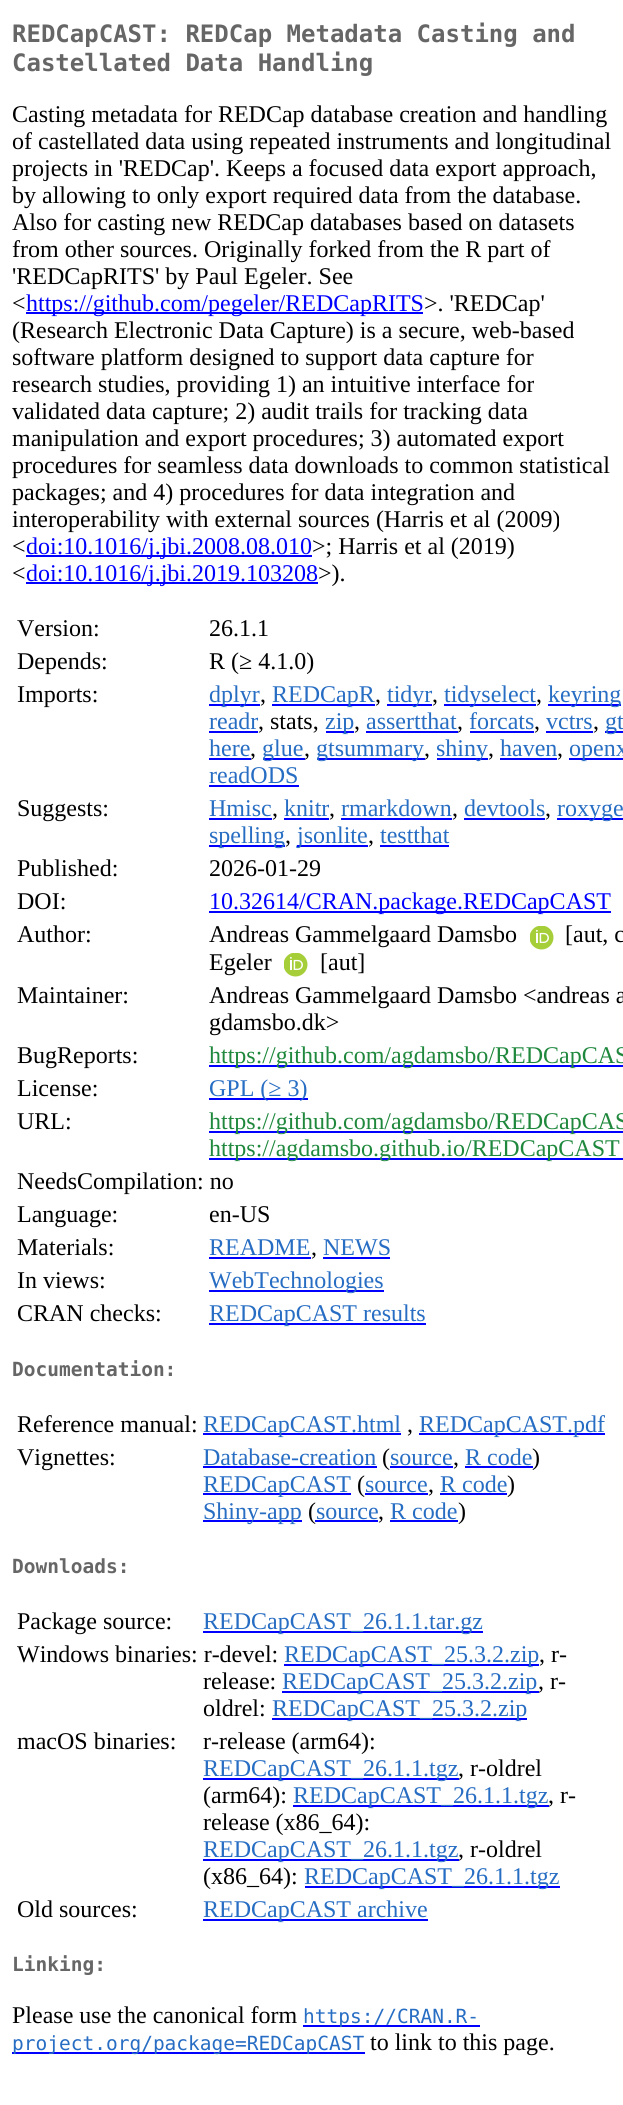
#include <cairo/cairo.h>
#include <math.h>
#include <stddef.h>

static cairo_t *cr;

static void use_color(int r, int g, int b) {
  cairo_set_source_rgb(cr, r / 255.0, g / 255.0, b / 255.0);
}

static void text(double x, double y, const char *s, const char *family, double size, int italic, int bold, int r, int g, int b) {
  cairo_select_font_face(cr, family, italic ? CAIRO_FONT_SLANT_ITALIC : CAIRO_FONT_SLANT_NORMAL,
    bold ? CAIRO_FONT_WEIGHT_BOLD : CAIRO_FONT_WEIGHT_NORMAL);
  cairo_set_font_size(cr, size);
  use_color(r, g, b);
  cairo_move_to(cr, x, y);
  cairo_show_text(cr, s);
}

static void box(double x, double y, double w, double h, int r, int g, int b) {
  use_color(r, g, b);
  cairo_rectangle(cr, x, y, w, h);
  cairo_fill(cr);
}

static void picture(const char *path, double x, double y, double w, double h) {
  cairo_surface_t *image = cairo_image_surface_create_from_png(path);
  cairo_save(cr);
  cairo_set_source_surface(cr, image, x, y);
  cairo_rectangle(cr, x, y, w, h);
  cairo_fill(cr);
  cairo_restore(cr);
  cairo_surface_destroy(image);
}

static void draw(void) {
  use_color(255, 255, 255);
  cairo_paint(cr);
  box(26, 312, 397, 2, 0, 0, 255);
  box(26, 555, 286, 2, 0, 0, 255);
  box(26, 582, 292, 2, 0, 0, 255);
  box(209, 704, 51, 2, 0, 0, 255);
  box(272, 704, 103, 2, 0, 0, 255);
  box(387, 704, 45, 2, 0, 0, 255);
  box(444, 704, 92, 2, 0, 0, 255);
  box(548, 704, 73, 2, 0, 0, 255);
  box(209, 731, 49, 2, 0, 0, 255);
  box(326, 731, 28, 2, 0, 0, 255);
  box(366, 731, 92, 2, 0, 0, 255);
  box(470, 731, 64, 2, 0, 0, 255);
  box(546, 731, 47, 2, 0, 0, 255);
  box(605, 731, 18, 2, 0, 0, 255);
  box(209, 758, 42, 2, 0, 0, 255);
  box(263, 758, 42, 2, 0, 0, 255);
  box(317, 758, 108, 2, 0, 0, 255);
  box(437, 758, 51, 2, 0, 0, 255);
  box(500, 758, 57, 2, 0, 0, 255);
  box(569, 758, 54, 2, 0, 0, 255);
  box(209, 785, 90, 2, 0, 0, 255);
  box(209, 818, 63, 2, 0, 0, 255);
  box(284, 818, 45, 2, 0, 0, 255);
  box(341, 818, 111, 2, 0, 0, 255);
  box(464, 818, 81, 2, 0, 0, 255);
  box(557, 818, 66, 2, 0, 0, 255);
  box(209, 845, 76, 2, 0, 0, 255);
  box(297, 845, 71, 2, 0, 0, 255);
  box(380, 845, 69, 2, 0, 0, 255);
  box(209, 911, 402, 2, 0, 0, 255);
  picture("img_01.png", 530, 926, 24, 24);
  picture("img_01.png", 284, 953, 24, 24);
  box(209, 1065, 414, 2, 0, 0, 255);
  box(209, 1098, 99, 2, 0, 0, 255);
  box(209, 1131, 414, 2, 0, 0, 255);
  box(209, 1158, 414, 2, 0, 0, 255);
  box(209, 1257, 102, 2, 0, 0, 255);
  box(323, 1257, 67, 2, 0, 0, 255);
  box(209, 1290, 175, 2, 0, 0, 255);
  box(209, 1323, 217, 2, 0, 0, 255);
  box(203, 1433, 198, 2, 0, 0, 255);
  box(419, 1433, 186, 2, 0, 0, 255);
  box(203, 1466, 174, 2, 0, 0, 255);
  box(390, 1466, 63, 2, 0, 0, 255);
  box(465, 1466, 68, 2, 0, 0, 255);
  box(203, 1493, 148, 2, 0, 0, 255);
  box(365, 1493, 63, 2, 0, 0, 255);
  box(440, 1493, 67, 2, 0, 0, 255);
  box(203, 1520, 99, 2, 0, 0, 255);
  box(315, 1520, 63, 2, 0, 0, 255);
  box(390, 1520, 68, 2, 0, 0, 255);
  box(203, 1631, 280, 2, 0, 0, 255);
  box(284, 1664, 255, 2, 0, 0, 255);
  box(282, 1691, 257, 2, 0, 0, 255);
  box(272, 1718, 255, 2, 0, 0, 255);
  box(203, 1778, 256, 2, 0, 0, 255);
  box(293, 1805, 256, 2, 0, 0, 255);
  box(203, 1859, 256, 2, 0, 0, 255);
  box(305, 1886, 255, 2, 0, 0, 255);
  box(203, 1919, 225, 2, 0, 0, 255);
  box(303, 2025, 177, 2, 0, 0, 255);
  box(12, 2052, 353, 2, 0, 0, 255);
  text(12, 42, "REDCapCAST: REDCap Metadata Casting and", "DejaVu Sans Mono", 24, 0, 1, 102, 102, 102);
  text(12, 71, "Castellated Data Handling", "DejaVu Sans Mono", 24, 0, 1, 102, 102, 102);
  text(12, 122, "Casting metadata for REDCap database creation and handling", "Liberation Serif", 24, 0, 0, 0, 0, 0);
  text(12, 149, "of castellated data using repeated instruments and longitudinal", "Liberation Serif", 24, 0, 0, 0, 0, 0);
  text(12, 176, "projects in 'REDCap'. Keeps a focused data export approach,", "Liberation Serif", 24, 0, 0, 0, 0, 0);
  text(12, 203, "by allowing to only export required data from the database.", "Liberation Serif", 24, 0, 0, 0, 0, 0);
  text(12, 230, "Also for casting new REDCap databases based on datasets", "Liberation Serif", 24, 0, 0, 0, 0, 0);
  text(12, 257, "from other sources. Originally forked from the R part of", "Liberation Serif", 24, 0, 0, 0, 0, 0);
  text(12, 284, "'REDCapRITS' by Paul Egeler. See", "Liberation Serif", 24, 0, 0, 0, 0, 0);
  text(12, 311, "<", "Liberation Serif", 24, 0, 0, 0, 0, 0);
  text(26, 311, "https://github.com/pegeler/REDCapRITS", "Liberation Serif", 24, 0, 0, 0, 0, 255);
  text(424, 311, ">. 'REDCap'", "Liberation Serif", 24, 0, 0, 0, 0, 0);
  text(12, 338, "(Research Electronic Data Capture) is a secure, web-based", "Liberation Serif", 24, 0, 0, 0, 0, 0);
  text(12, 365, "software platform designed to support data capture for", "Liberation Serif", 24, 0, 0, 0, 0, 0);
  text(12, 392, "research studies, providing 1) an intuitive interface for", "Liberation Serif", 24, 0, 0, 0, 0, 0);
  text(12, 419, "validated data capture; 2) audit trails for tracking data", "Liberation Serif", 24, 0, 0, 0, 0, 0);
  text(12, 446, "manipulation and export procedures; 3) automated export", "Liberation Serif", 24, 0, 0, 0, 0, 0);
  text(12, 473, "procedures for seamless data downloads to common statistical", "Liberation Serif", 24, 0, 0, 0, 0, 0);
  text(12, 500, "packages; and 4) procedures for data integration and", "Liberation Serif", 24, 0, 0, 0, 0, 0);
  text(12, 527, "interoperability with external sources (Harris et al (2009)", "Liberation Serif", 24, 0, 0, 0, 0, 0);
  text(12, 554, "<", "Liberation Serif", 24, 0, 0, 0, 0, 0);
  text(26, 554, "doi:10.1016/j.jbi.2008.08.010", "Liberation Serif", 24, 0, 0, 0, 0, 255);
  text(312, 554, ">; Harris et al (2019)", "Liberation Serif", 24, 0, 0, 0, 0, 0);
  text(12, 581, "<", "Liberation Serif", 24, 0, 0, 0, 0, 0);
  text(26, 581, "doi:10.1016/j.jbi.2019.103208", "Liberation Serif", 24, 0, 0, 0, 0, 255);
  text(318, 581, ">).", "Liberation Serif", 24, 0, 0, 0, 0, 0);
  text(17, 636, "Version:", "Liberation Serif", 24, 0, 0, 0, 0, 0);
  text(209, 636, "26.1.1", "Liberation Serif", 24, 0, 0, 0, 0, 0);
  text(17, 669, "Depends:", "Liberation Serif", 24, 0, 0, 0, 0, 0);
  text(209, 669, "R (≥ 4.1.0)", "Liberation Serif", 24, 0, 0, 0, 0, 0);
  text(17, 702, "Imports:", "Liberation Serif", 24, 0, 0, 0, 0, 0);
  text(209, 702, "dplyr", "Liberation Serif", 24, 0, 0, 39, 109, 195);
  text(260, 702, ",", "Liberation Serif", 24, 0, 0, 0, 0, 0);
  text(272, 702, "REDCapR", "Liberation Serif", 24, 0, 0, 39, 109, 195);
  text(375, 702, ",", "Liberation Serif", 24, 0, 0, 0, 0, 0);
  text(387, 702, "tidyr", "Liberation Serif", 24, 0, 0, 39, 109, 195);
  text(432, 702, ",", "Liberation Serif", 24, 0, 0, 0, 0, 0);
  text(444, 702, "tidyselect", "Liberation Serif", 24, 0, 0, 39, 109, 195);
  text(536, 702, ",", "Liberation Serif", 24, 0, 0, 0, 0, 0);
  text(548, 702, "keyring", "Liberation Serif", 24, 0, 0, 39, 109, 195);
  text(209, 729, "readr", "Liberation Serif", 24, 0, 0, 39, 109, 195);
  text(258, 729, ", stats,", "Liberation Serif", 24, 0, 0, 0, 0, 0);
  text(325, 729, "zip", "Liberation Serif", 24, 0, 0, 39, 109, 195);
  text(354, 729, ",", "Liberation Serif", 24, 0, 0, 0, 0, 0);
  text(366, 729, "assertthat", "Liberation Serif", 24, 0, 0, 39, 109, 195);
  text(457, 729, ",", "Liberation Serif", 24, 0, 0, 0, 0, 0);
  text(469, 729, "forcats", "Liberation Serif", 24, 0, 0, 39, 109, 195);
  text(534, 729, ",", "Liberation Serif", 24, 0, 0, 0, 0, 0);
  text(546, 729, "vctrs", "Liberation Serif", 24, 0, 0, 39, 109, 195);
  text(593, 729, ",", "Liberation Serif", 24, 0, 0, 0, 0, 0);
  text(605, 729, "gt", "Liberation Serif", 24, 0, 0, 39, 109, 195);
  text(209, 756, "here", "Liberation Serif", 24, 0, 0, 39, 109, 195);
  text(250, 756, ",", "Liberation Serif", 24, 0, 0, 0, 0, 0);
  text(262, 756, "glue", "Liberation Serif", 24, 0, 0, 39, 109, 195);
  text(304, 756, ",", "Liberation Serif", 24, 0, 0, 0, 0, 0);
  text(316, 756, "gtsummary", "Liberation Serif", 24, 0, 0, 39, 109, 195);
  text(424, 756, ",", "Liberation Serif", 24, 0, 0, 0, 0, 0);
  text(436, 756, "shiny", "Liberation Serif", 24, 0, 0, 39, 109, 195);
  text(488, 756, ",", "Liberation Serif", 24, 0, 0, 0, 0, 0);
  text(500, 756, "haven", "Liberation Serif", 24, 0, 0, 39, 109, 195);
  text(557, 756, ",", "Liberation Serif", 24, 0, 0, 0, 0, 0);
  text(569, 756, "openx", "Liberation Serif", 24, 0, 0, 39, 109, 195);
  text(209, 783, "readODS", "Liberation Serif", 24, 0, 0, 39, 109, 195);
  text(17, 816, "Suggests:", "Liberation Serif", 24, 0, 0, 0, 0, 0);
  text(209, 816, "Hmisc", "Liberation Serif", 24, 0, 0, 39, 109, 195);
  text(272, 816, ",", "Liberation Serif", 24, 0, 0, 0, 0, 0);
  text(284, 816, "knitr", "Liberation Serif", 24, 0, 0, 39, 109, 195);
  text(329, 816, ",", "Liberation Serif", 24, 0, 0, 0, 0, 0);
  text(341, 816, "rmarkdown", "Liberation Serif", 24, 0, 0, 39, 109, 195);
  text(452, 816, ",", "Liberation Serif", 24, 0, 0, 0, 0, 0);
  text(464, 816, "devtools", "Liberation Serif", 24, 0, 0, 39, 109, 195);
  text(545, 816, ",", "Liberation Serif", 24, 0, 0, 0, 0, 0);
  text(557, 816, "roxyge", "Liberation Serif", 24, 0, 0, 39, 109, 195);
  text(209, 843, "spelling", "Liberation Serif", 24, 0, 0, 39, 109, 195);
  text(285, 843, ",", "Liberation Serif", 24, 0, 0, 0, 0, 0);
  text(297, 843, "jsonlite", "Liberation Serif", 24, 0, 0, 39, 109, 195);
  text(368, 843, ",", "Liberation Serif", 24, 0, 0, 0, 0, 0);
  text(380, 843, "testthat", "Liberation Serif", 24, 0, 0, 39, 109, 195);
  text(17, 876, "Published:", "Liberation Serif", 24, 0, 0, 0, 0, 0);
  text(209, 876, "2026-01-29", "Liberation Serif", 24, 0, 0, 0, 0, 0);
  text(17, 909, "DOI:", "Liberation Serif", 24, 0, 0, 0, 0, 0);
  text(209, 909, "10.32614/CRAN.package.REDCapCAST", "Liberation Serif", 24, 0, 0, 0, 0, 255);
  text(17, 942, "Author:", "Liberation Serif", 24, 0, 0, 0, 0, 0);
  text(209, 942, "Andreas Gammelgaard Damsbo", "Liberation Serif", 24, 0, 0, 0, 0, 0);
  text(565, 942, "[aut, c", "Liberation Serif", 24, 0, 0, 0, 0, 0);
  text(209, 970, "Egeler", "Liberation Serif", 24, 0, 0, 0, 0, 0);
  text(320, 970, "[aut]", "Liberation Serif", 24, 0, 0, 0, 0, 0);
  text(17, 1003, "Maintainer:", "Liberation Serif", 24, 0, 0, 0, 0, 0);
  text(209, 1003, "Andreas Gammelgaard Damsbo <andreas a", "Liberation Serif", 24, 0, 0, 0, 0, 0);
  text(209, 1030, "gdamsbo.dk>", "Liberation Serif", 24, 0, 0, 0, 0, 0);
  text(17, 1063, "BugReports:", "Liberation Serif", 24, 0, 0, 0, 0, 0);
  text(209, 1063, "https://github.com/agdamsbo/REDCapCAS", "Liberation Serif", 24, 0, 0, 31, 136, 61);
  text(17, 1096, "License:", "Liberation Serif", 24, 0, 0, 0, 0, 0);
  text(209, 1096, "GPL (≥ 3)", "Liberation Serif", 24, 0, 0, 39, 109, 195);
  text(17, 1129, "URL:", "Liberation Serif", 24, 0, 0, 0, 0, 0);
  text(209, 1129, "https://github.com/agdamsbo/REDCapCAS", "Liberation Serif", 24, 0, 0, 31, 136, 61);
  text(209, 1156, "https://agdamsbo.github.io/REDCapCAST", "Liberation Serif", 24, 0, 0, 31, 136, 61);
  text(17, 1189, "NeedsCompilation: no", "Liberation Serif", 24, 0, 0, 0, 0, 0);
  text(17, 1222, "Language:", "Liberation Serif", 24, 0, 0, 0, 0, 0);
  text(209, 1222, "en-US", "Liberation Serif", 24, 0, 0, 0, 0, 0);
  text(17, 1255, "Materials:", "Liberation Serif", 24, 0, 0, 0, 0, 0);
  text(209, 1255, "README", "Liberation Serif", 24, 0, 0, 39, 109, 195);
  text(311, 1255, ",", "Liberation Serif", 24, 0, 0, 0, 0, 0);
  text(323, 1255, "NEWS", "Liberation Serif", 24, 0, 0, 39, 109, 195);
  text(17, 1288, "In views:", "Liberation Serif", 24, 0, 0, 0, 0, 0);
  text(209, 1288, "WebTechnologies", "Liberation Serif", 24, 0, 0, 39, 109, 195);
  text(17, 1321, "CRAN checks:", "Liberation Serif", 24, 0, 0, 0, 0, 0);
  text(209, 1321, "REDCapCAST results", "Liberation Serif", 24, 0, 0, 39, 109, 195);
  text(12, 1376, "Documentation:", "DejaVu Sans Mono", 19.5, 0, 1, 102, 102, 102);
  text(17, 1432, "Reference manual:", "Liberation Serif", 24, 0, 0, 0, 0, 0);
  text(203, 1432, "REDCapCAST.html", "Liberation Serif", 24, 0, 0, 39, 109, 195);
  text(407, 1432, ",", "Liberation Serif", 24, 0, 0, 0, 0, 0);
  text(419, 1432, "REDCapCAST.pdf", "Liberation Serif", 24, 0, 0, 39, 109, 195);
  text(17, 1465, "Vignettes:", "Liberation Serif", 24, 0, 0, 0, 0, 0);
  text(203, 1465, "Database-creation", "Liberation Serif", 24, 0, 0, 39, 109, 195);
  text(382, 1465, "(", "Liberation Serif", 24, 0, 0, 0, 0, 0);
  text(390, 1465, "source", "Liberation Serif", 24, 0, 0, 39, 109, 195);
  text(453, 1465, ",", "Liberation Serif", 24, 0, 0, 0, 0, 0);
  text(465, 1465, "R code", "Liberation Serif", 24, 0, 0, 39, 109, 195);
  text(532, 1465, ")", "Liberation Serif", 24, 0, 0, 0, 0, 0);
  text(203, 1492, "REDCapCAST", "Liberation Serif", 24, 0, 0, 39, 109, 195);
  text(357, 1492, "(", "Liberation Serif", 24, 0, 0, 0, 0, 0);
  text(365, 1492, "source", "Liberation Serif", 24, 0, 0, 39, 109, 195);
  text(428, 1492, ",", "Liberation Serif", 24, 0, 0, 0, 0, 0);
  text(440, 1492, "R code", "Liberation Serif", 24, 0, 0, 39, 109, 195);
  text(507, 1492, ")", "Liberation Serif", 24, 0, 0, 0, 0, 0);
  text(203, 1519, "Shiny-app", "Liberation Serif", 24, 0, 0, 39, 109, 195);
  box(278, 1497, 6, 1, 255, 255, 255);
  text(308, 1519, "(", "Liberation Serif", 24, 0, 0, 0, 0, 0);
  text(316, 1519, "source", "Liberation Serif", 24, 0, 0, 39, 109, 195);
  text(378, 1519, ",", "Liberation Serif", 24, 0, 0, 0, 0, 0);
  text(390, 1519, "R code", "Liberation Serif", 24, 0, 0, 39, 109, 195);
  text(458, 1519, ")", "Liberation Serif", 24, 0, 0, 0, 0, 0);
  text(12, 1573, "Downloads:", "DejaVu Sans Mono", 19.5, 0, 1, 102, 102, 102);
  text(17, 1629, "Package source:", "Liberation Serif", 24, 0, 0, 0, 0, 0);
  text(203, 1629, "REDCapCAST_26.1.1.tar.gz", "Liberation Serif", 24, 0, 0, 39, 109, 195);
  text(17, 1662, "Windows binaries: r-devel:", "Liberation Serif", 24, 0, 0, 0, 0, 0);
  text(284, 1662, "REDCapCAST_25.3.2.zip", "Liberation Serif", 24, 0, 0, 39, 109, 195);
  text(539, 1662, ", r-", "Liberation Serif", 24, 0, 0, 0, 0, 0);
  text(203, 1689, "release:", "Liberation Serif", 24, 0, 0, 0, 0, 0);
  text(282, 1689, "REDCapCAST_25.3.2.zip", "Liberation Serif", 24, 0, 0, 39, 109, 195);
  text(538, 1689, ", r-", "Liberation Serif", 24, 0, 0, 0, 0, 0);
  text(203, 1716, "oldrel:", "Liberation Serif", 24, 0, 0, 0, 0, 0);
  text(272, 1716, "REDCapCAST_25.3.2.zip", "Liberation Serif", 24, 0, 0, 39, 109, 195);
  text(17, 1749, "macOS binaries:", "Liberation Serif", 24, 0, 0, 0, 0, 0);
  text(203, 1749, "r-release (arm64):", "Liberation Serif", 24, 0, 0, 0, 0, 0);
  text(203, 1776, "REDCapCAST_26.1.1.tgz", "Liberation Serif", 24, 0, 0, 39, 109, 195);
  text(458, 1776, ", r-oldrel", "Liberation Serif", 24, 0, 0, 0, 0, 0);
  text(203, 1803, "(arm64):", "Liberation Serif", 24, 0, 0, 0, 0, 0);
  text(293, 1803, "REDCapCAST_26.1.1.tgz", "Liberation Serif", 24, 0, 0, 39, 109, 195);
  text(548, 1803, ", r-", "Liberation Serif", 24, 0, 0, 0, 0, 0);
  text(203, 1830, "release (x86_64):", "Liberation Serif", 24, 0, 0, 0, 0, 0);
  text(203, 1857, "REDCapCAST_26.1.1.tgz", "Liberation Serif", 24, 0, 0, 39, 109, 195);
  text(458, 1857, ", r-oldrel", "Liberation Serif", 24, 0, 0, 0, 0, 0);
  text(203, 1884, "(x86_64):", "Liberation Serif", 24, 0, 0, 0, 0, 0);
  text(304, 1884, "REDCapCAST_26.1.1.tgz", "Liberation Serif", 24, 0, 0, 39, 109, 195);
  text(17, 1917, "Old sources:", "Liberation Serif", 24, 0, 0, 0, 0, 0);
  text(203, 1917, "REDCapCAST archive", "Liberation Serif", 24, 0, 0, 39, 109, 195);
  text(12, 1971, "Linking:", "DejaVu Sans Mono", 19.5, 0, 1, 102, 102, 102);
  text(12, 2023, "Please use the canonical form", "Liberation Serif", 24, 0, 0, 0, 0, 0);
  text(303, 2023, "https://CRAN.R-", "DejaVu Sans Mono", 19.5, 0, 0, 39, 109, 195);
  text(12, 2050, "project.org/package=REDCapCAST", "DejaVu Sans Mono", 19.5, 0, 0, 39, 109, 195);
  text(370, 2050, "to link to this page.", "Liberation Serif", 24, 0, 0, 0, 0, 0);
}

int main(void) {
  cairo_surface_t *surface = cairo_image_surface_create(CAIRO_FORMAT_RGB24, 623, 2105);
  cr = cairo_create(surface);
  cairo_font_options_t *options = cairo_font_options_create();
  cairo_font_options_set_hint_metrics(options, CAIRO_HINT_METRICS_OFF);
  cairo_font_options_set_hint_style(options, CAIRO_HINT_STYLE_NONE);
  cairo_set_font_options(cr, options);
  cairo_set_miter_limit(cr, 4);
  draw();
  cairo_surface_write_to_png(surface, "out.png");
  cairo_font_options_destroy(options);
  cairo_destroy(cr);
  cairo_surface_destroy(surface);
  return 0;
}
